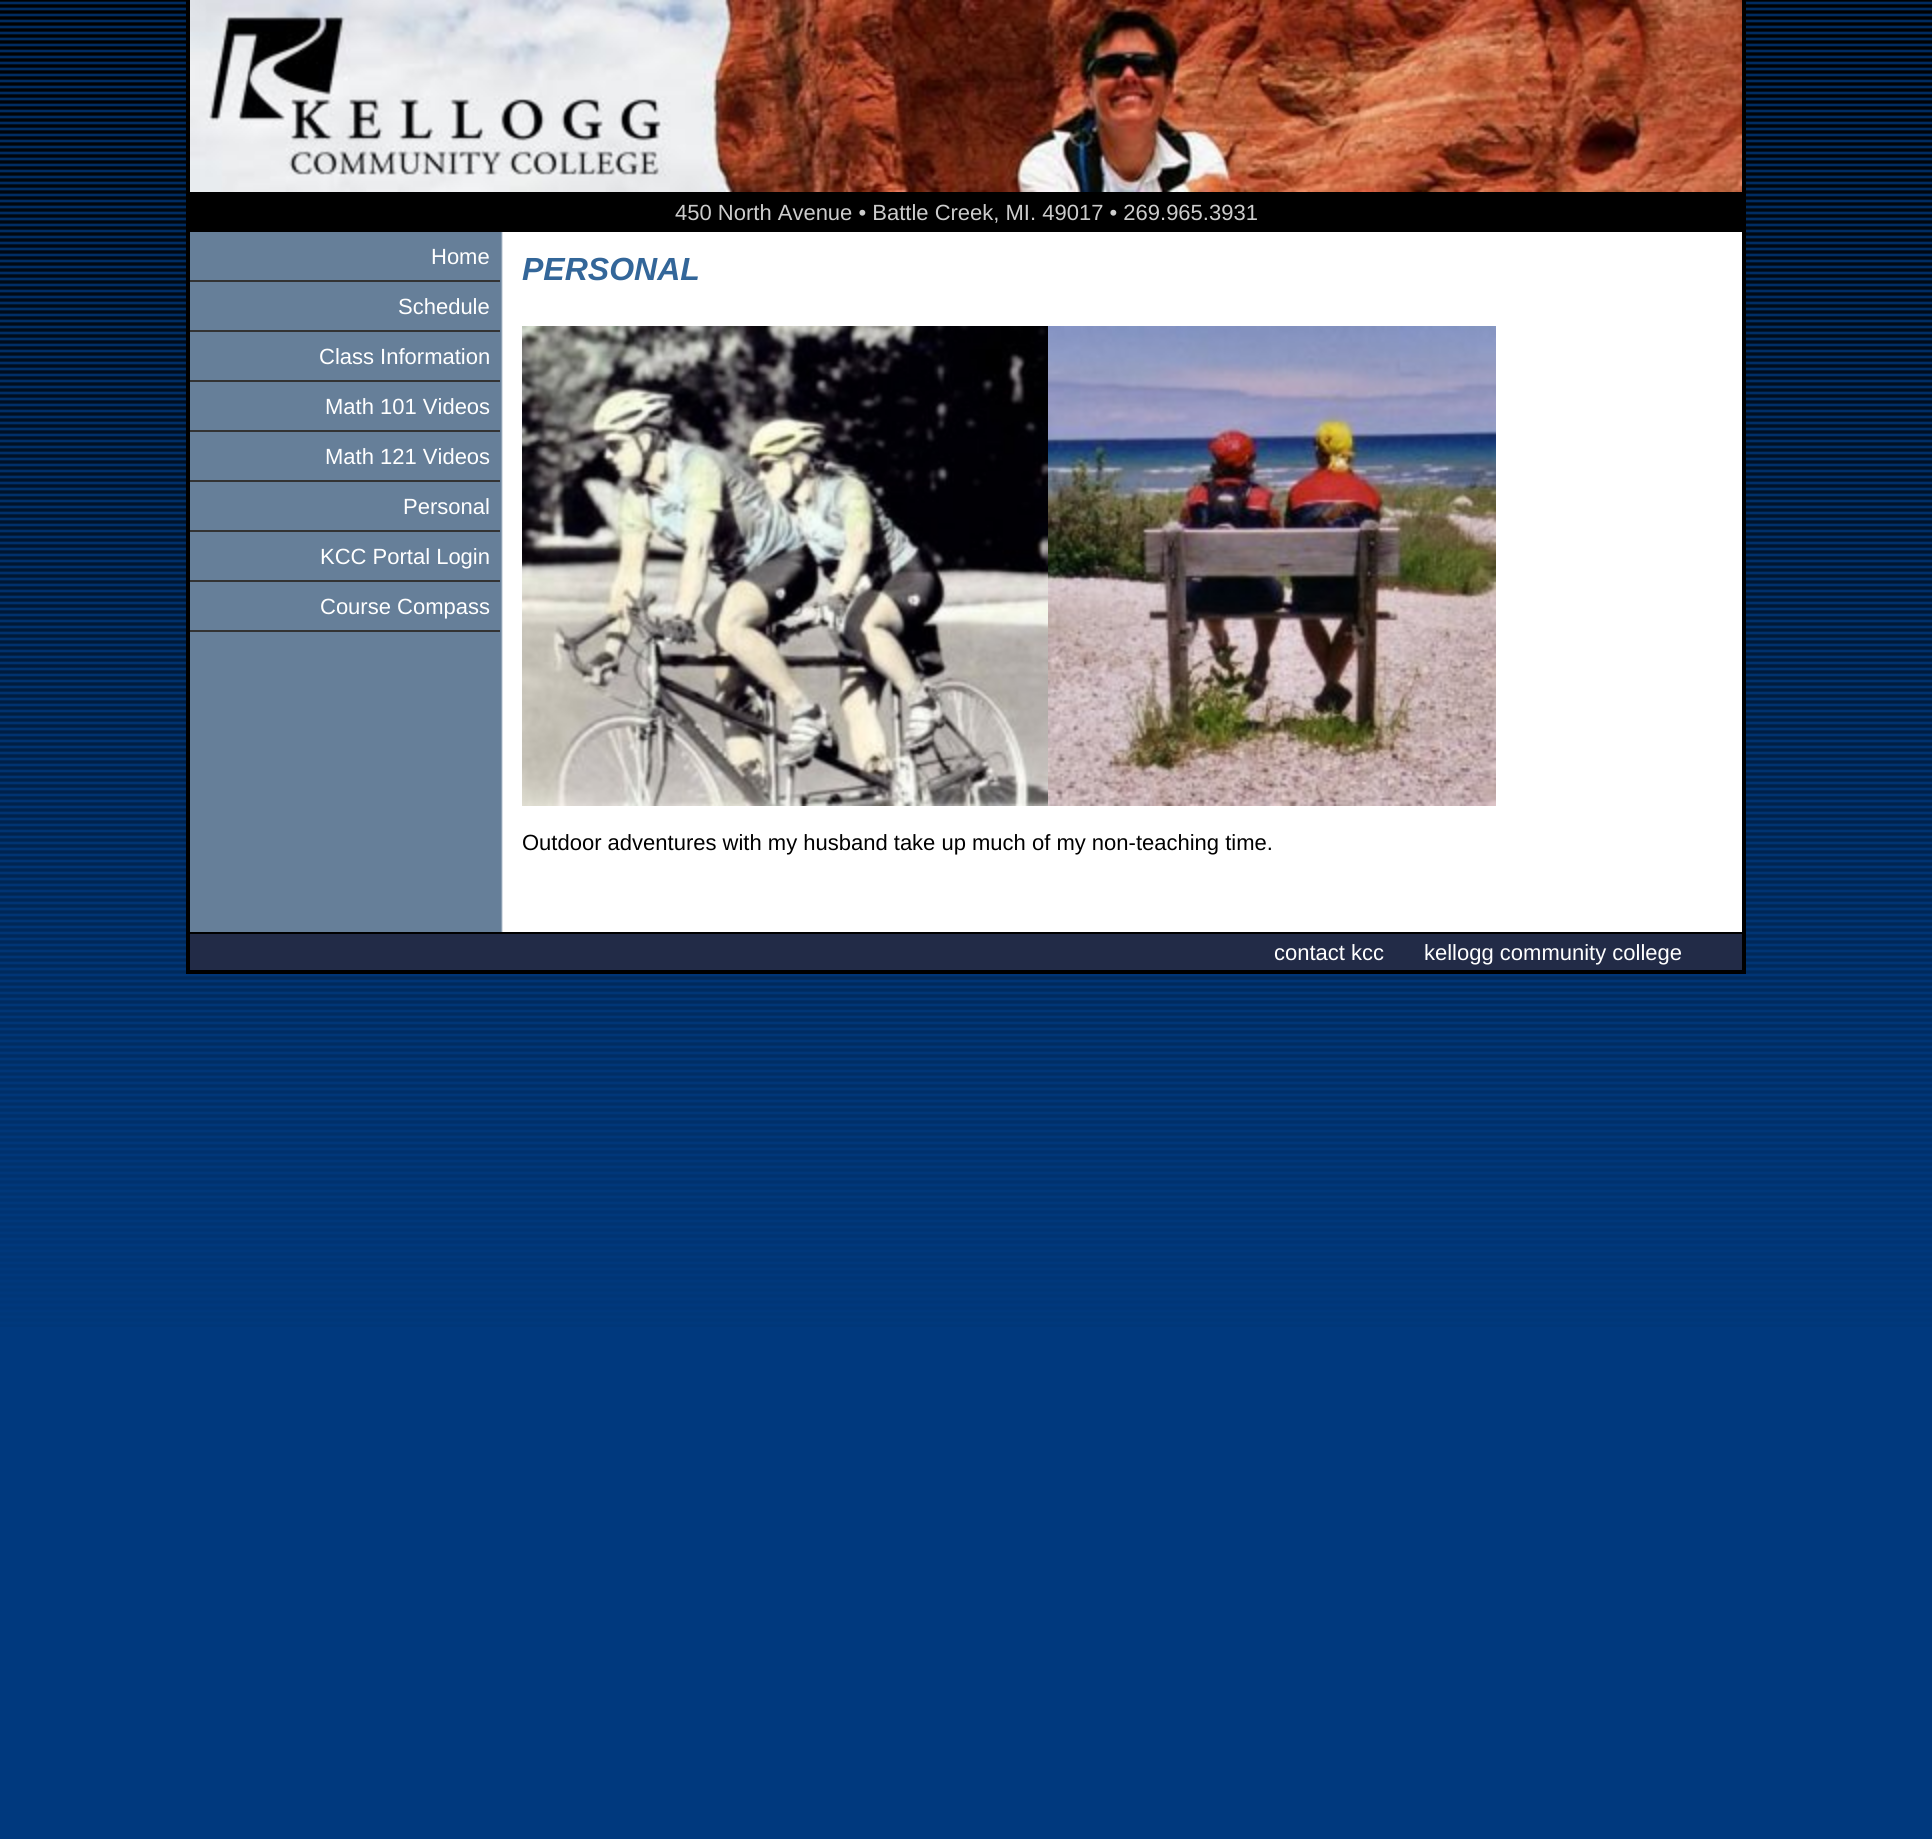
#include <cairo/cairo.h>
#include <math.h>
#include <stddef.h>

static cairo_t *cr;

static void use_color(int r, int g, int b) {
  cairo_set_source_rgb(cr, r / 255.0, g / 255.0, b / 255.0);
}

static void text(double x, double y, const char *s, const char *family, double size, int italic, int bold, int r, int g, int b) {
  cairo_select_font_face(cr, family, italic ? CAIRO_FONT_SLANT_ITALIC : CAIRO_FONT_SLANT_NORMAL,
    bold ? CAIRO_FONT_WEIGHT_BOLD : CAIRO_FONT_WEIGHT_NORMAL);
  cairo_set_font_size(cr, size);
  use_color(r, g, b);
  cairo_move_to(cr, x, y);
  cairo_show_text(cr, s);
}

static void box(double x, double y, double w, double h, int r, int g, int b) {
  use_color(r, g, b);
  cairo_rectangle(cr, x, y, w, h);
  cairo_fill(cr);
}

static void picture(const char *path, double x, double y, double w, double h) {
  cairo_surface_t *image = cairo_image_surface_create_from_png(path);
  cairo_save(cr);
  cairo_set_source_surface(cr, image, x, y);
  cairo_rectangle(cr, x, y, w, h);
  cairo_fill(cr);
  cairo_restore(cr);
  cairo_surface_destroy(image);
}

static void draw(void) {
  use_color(0, 57, 126);
  cairo_paint(cr);
  picture("img_01.png", 0, 0, 1932, 1327);
  box(503, 232, 1239, 700, 255, 255, 255);
  box(1742, 0, 4, 974, 0, 0, 0);
  box(186, 0, 4, 974, 0, 0, 0);
  picture("img_02.png", 190, 0, 1552, 192);
  box(190, 192, 1552, 40, 0, 0, 0);
  picture("img_03.png", 190, 232, 313, 700);
  box(190, 280, 310, 2, 51, 51, 51);
  box(190, 330, 310, 2, 51, 51, 51);
  box(190, 380, 310, 2, 51, 51, 51);
  box(190, 430, 310, 2, 51, 51, 51);
  box(190, 480, 310, 2, 51, 51, 51);
  box(190, 530, 310, 2, 51, 51, 51);
  box(190, 580, 310, 2, 51, 51, 51);
  box(190, 630, 310, 2, 51, 51, 51);
  picture("img_04.png", 522, 326, 526, 480);
  picture("img_05.png", 1048, 326, 448, 480);
  box(190, 934, 1552, 36, 34, 43, 71);
  box(190, 932, 1552, 2, 0, 0, 0);
  box(190, 970, 1552, 4, 0, 0, 0);
  text(675, 220, "450 North Avenue • Battle Creek, MI. 49017 • 269.965.3931", "Liberation Sans", 22, 0, 0, 204, 204, 204);
  text(431, 264, "Home", "Liberation Sans", 22, 0, 0, 255, 255, 255);
  text(398, 314, "Schedule", "Liberation Sans", 22, 0, 0, 255, 255, 255);
  text(319, 364, "Class Information", "Liberation Sans", 22, 0, 0, 255, 255, 255);
  text(325, 414, "Math 101 Videos", "Liberation Sans", 22, 0, 0, 255, 255, 255);
  text(325, 464, "Math 121 Videos", "Liberation Sans", 22, 0, 0, 255, 255, 255);
  text(403, 514, "Personal", "Liberation Sans", 22, 0, 0, 255, 255, 255);
  text(320, 564, "KCC Portal Login", "Liberation Sans", 22, 0, 0, 255, 255, 255);
  text(320, 614, "Course Compass", "Liberation Sans", 22, 0, 0, 255, 255, 255);
  text(522, 280, "PERSONAL", "Liberation Sans", 32, 1, 1, 51, 102, 153);
  text(522, 850, "Outdoor adventures with my husband take up much of my non-teaching time.", "Liberation Sans", 22, 0, 0, 0, 0, 0);
  text(1274, 960, "contact kcc", "Liberation Sans", 22, 0, 0, 255, 255, 255);
  text(1424, 960, "kellogg community college", "Liberation Sans", 22, 0, 0, 255, 255, 255);
}

int main(void) {
  cairo_surface_t *surface = cairo_image_surface_create(CAIRO_FORMAT_RGB24, 1932, 1839);
  cr = cairo_create(surface);
  cairo_font_options_t *options = cairo_font_options_create();
  cairo_font_options_set_hint_metrics(options, CAIRO_HINT_METRICS_OFF);
  cairo_font_options_set_hint_style(options, CAIRO_HINT_STYLE_NONE);
  cairo_set_font_options(cr, options);
  cairo_set_miter_limit(cr, 4);
  draw();
  cairo_surface_write_to_png(surface, "out.png");
  cairo_font_options_destroy(options);
  cairo_destroy(cr);
  cairo_surface_destroy(surface);
  return 0;
}
